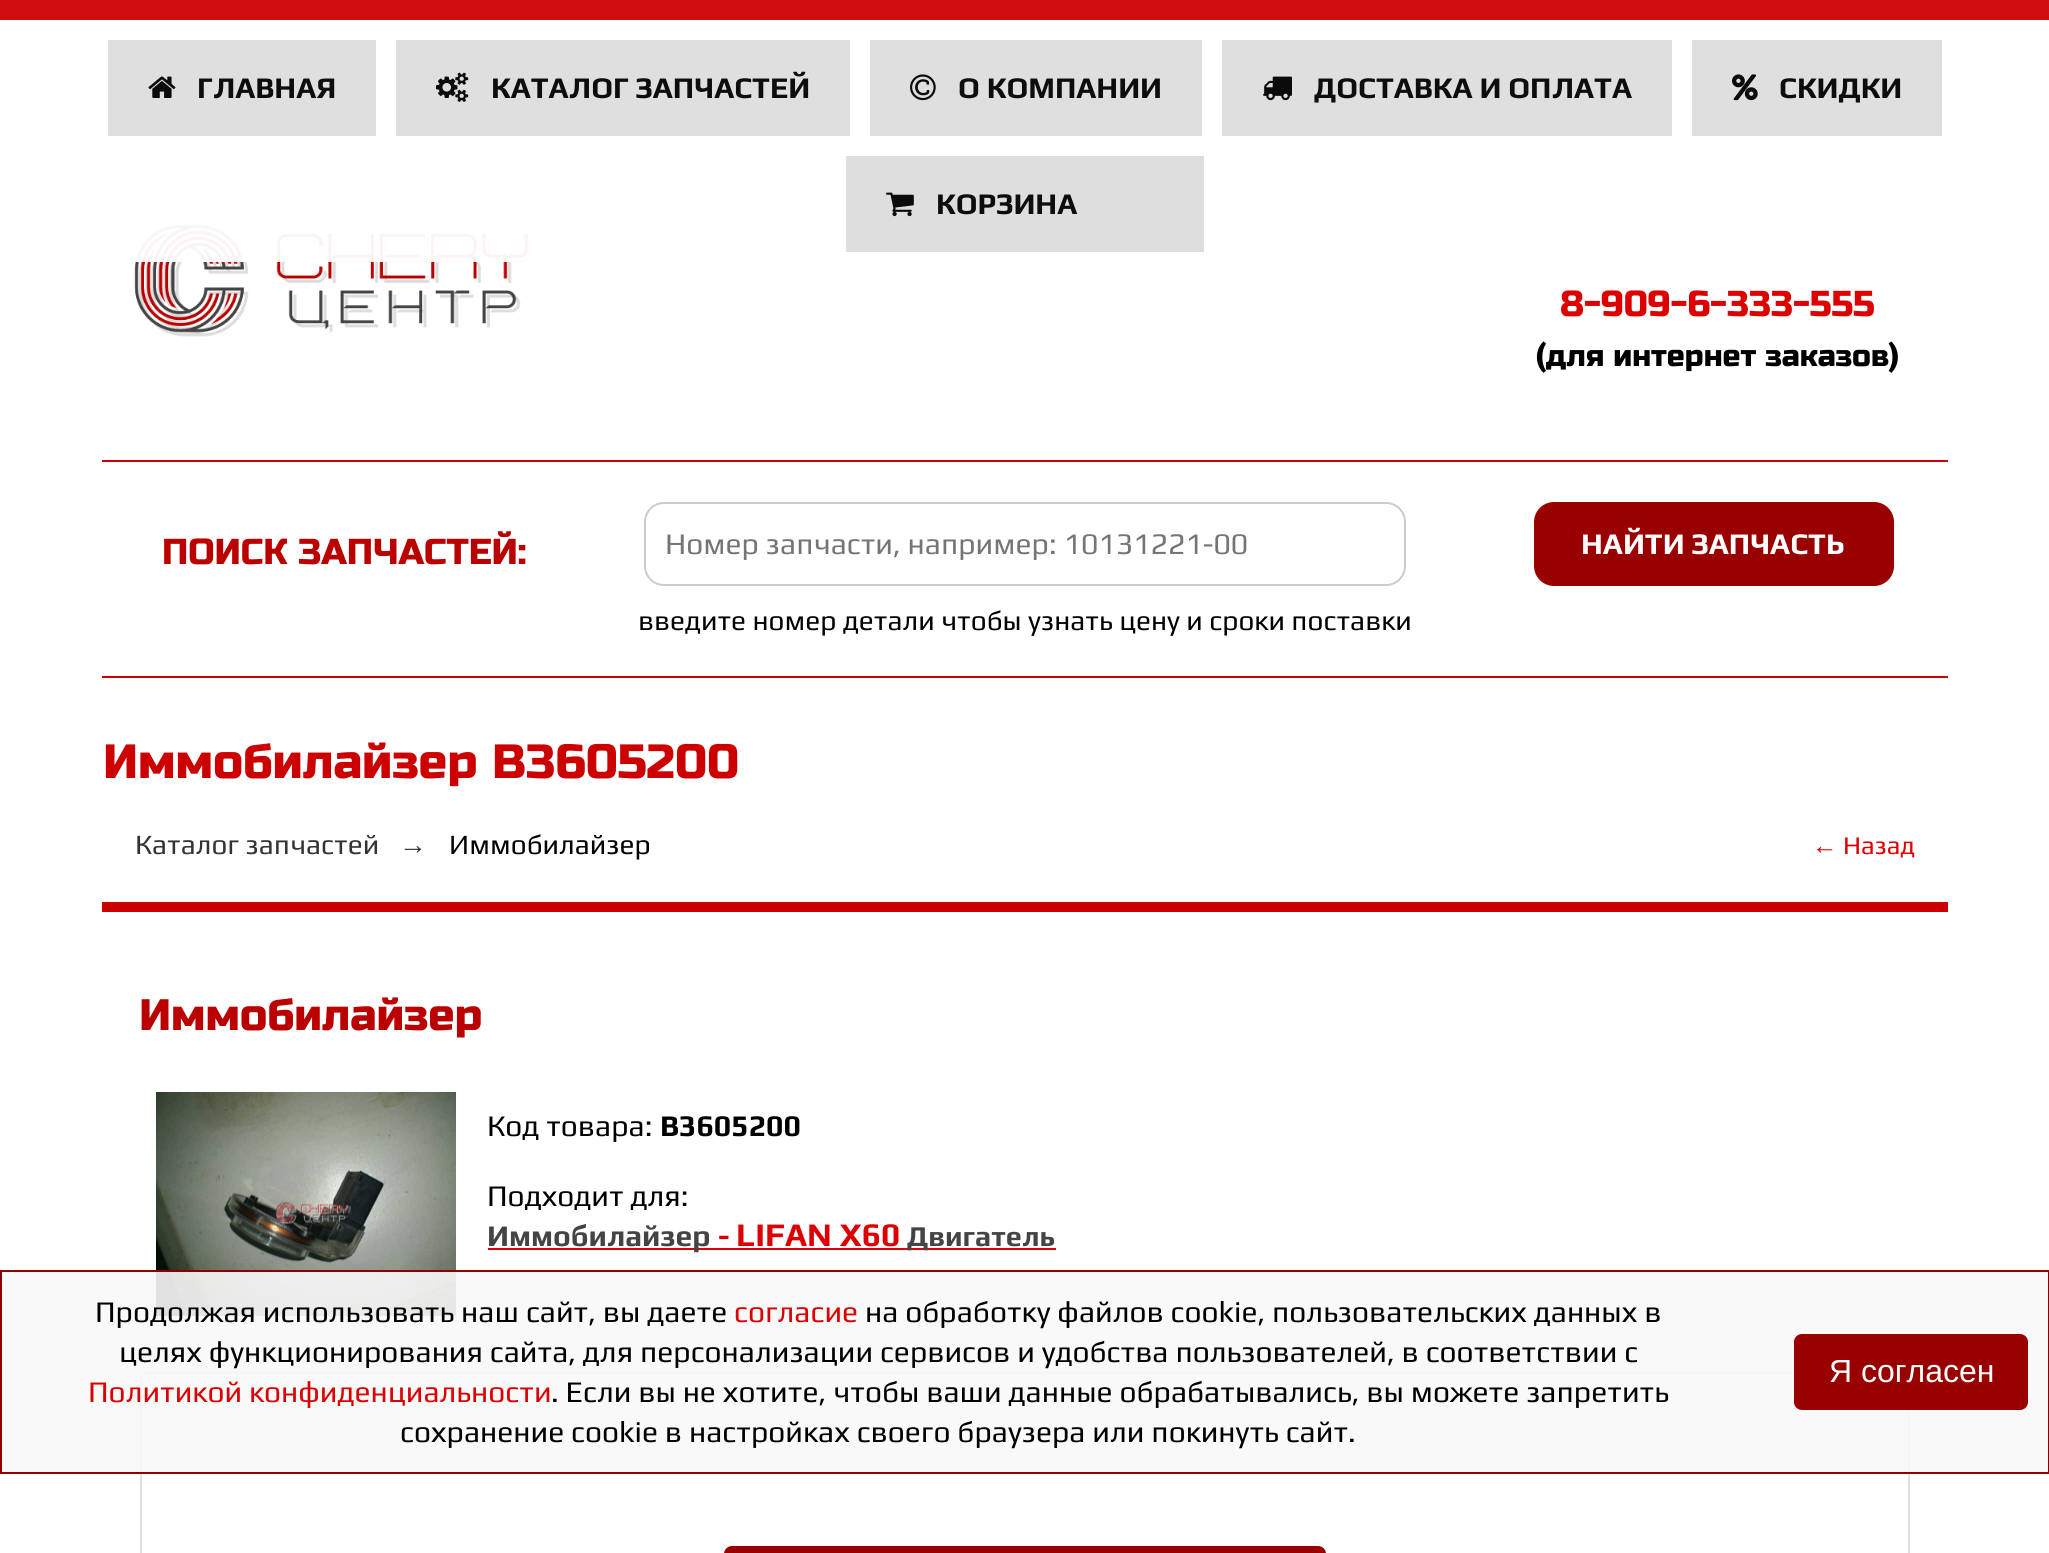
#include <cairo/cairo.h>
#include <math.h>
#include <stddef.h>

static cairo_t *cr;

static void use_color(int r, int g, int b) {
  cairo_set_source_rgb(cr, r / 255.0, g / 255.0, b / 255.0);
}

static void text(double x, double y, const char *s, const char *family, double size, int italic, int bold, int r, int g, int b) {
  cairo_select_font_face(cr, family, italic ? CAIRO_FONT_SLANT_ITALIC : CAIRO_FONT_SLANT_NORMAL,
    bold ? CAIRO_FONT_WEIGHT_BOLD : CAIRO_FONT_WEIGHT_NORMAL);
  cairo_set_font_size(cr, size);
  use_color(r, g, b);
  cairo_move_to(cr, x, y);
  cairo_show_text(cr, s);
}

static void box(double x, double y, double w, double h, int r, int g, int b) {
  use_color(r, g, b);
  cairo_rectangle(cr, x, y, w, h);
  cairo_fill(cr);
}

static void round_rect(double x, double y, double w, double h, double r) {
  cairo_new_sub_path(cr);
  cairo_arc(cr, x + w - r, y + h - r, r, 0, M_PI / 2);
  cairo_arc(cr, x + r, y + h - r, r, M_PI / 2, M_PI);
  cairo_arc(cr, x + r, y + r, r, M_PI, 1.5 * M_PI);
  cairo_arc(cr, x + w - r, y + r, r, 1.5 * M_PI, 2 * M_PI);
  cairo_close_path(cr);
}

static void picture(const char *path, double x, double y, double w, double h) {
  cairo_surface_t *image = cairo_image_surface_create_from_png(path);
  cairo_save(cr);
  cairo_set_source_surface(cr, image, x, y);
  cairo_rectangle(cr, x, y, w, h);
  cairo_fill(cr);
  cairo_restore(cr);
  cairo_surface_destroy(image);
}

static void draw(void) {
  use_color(255, 255, 255);
  cairo_paint(cr);
  picture("img_07.png", 134, 224, 399, 113);
  cairo_set_source_rgba(cr, 1, 1, 1, 0.95);
  cairo_rectangle(cr, 135, 224, 398, 38);
  cairo_fill(cr);
  box(0, 0, 2049, 20, 207, 13, 13);
  box(108, 40, 268, 96, 223, 223, 223);
  picture("img_01.png", 148, 76, 28, 22);
  box(396, 40, 454, 96, 223, 223, 223);
  picture("img_02.png", 436, 72, 33, 30);
  box(870, 40, 332, 96, 223, 223, 223);
  picture("img_03.png", 910, 74, 26, 27);
  box(1222, 40, 450, 96, 223, 223, 223);
  picture("img_04.png", 1263, 76, 29, 25);
  box(1692, 40, 250, 96, 223, 223, 223);
  picture("img_05.png", 1732, 74, 26, 27);
  cairo_set_source_rgba(cr, 0.867, 0.867, 0.867, 0.95);
  cairo_rectangle(cr, 846, 156, 358, 96);
  cairo_fill(cr);
  picture("img_06.png", 886, 192, 28, 25);
  box(102, 460, 1846, 2, 204, 0, 0);
  box(102, 676, 1846, 2, 204, 0, 0);
  round_rect(645, 503, 760, 82, 19);
  use_color(204, 204, 204);
  cairo_stroke(cr);
  use_color(153, 0, 0);
  round_rect(1535, 503, 358, 82, 19);
  cairo_fill_preserve(cr);
  cairo_stroke(cr);
  box(102, 902, 1846, 10, 204, 0, 0);
  picture("img_08.png", 156, 1092, 300, 224);
  box(488, 1248, 568, 2, 221, 0, 0);
  round_rect(141, 1373, 1768, 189, 7);
  use_color(223, 223, 223);
  cairo_stroke(cr);
  use_color(153, 0, 0);
  round_rect(725, 1547, 600, 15, 7);
  cairo_fill_preserve(cr);
  cairo_stroke(cr);
  cairo_set_source_rgba(cr, 0.973, 0.973, 0.973, 0.9);
  cairo_rectangle(cr, 1, 1271, 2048, 202);
  cairo_fill_preserve(cr);
  use_color(136, 0, 0);
  cairo_stroke(cr);
  use_color(153, 0, 0);
  round_rect(1795, 1335, 232, 74, 7);
  cairo_fill_preserve(cr);
  cairo_stroke(cr);
  text(197, 98, "ГЛАВНАЯ", "Play", 30, 0, 1, 13, 13, 13);
  text(491, 98, "КАТАЛОГ ЗАПЧАСТЕЙ", "Play", 30, 0, 1, 13, 13, 13);
  text(958, 98, "О КОМПАНИИ", "Play", 30, 0, 1, 13, 13, 13);
  text(1314, 98, "ДОСТАВКА И ОПЛАТА", "Play", 30, 0, 1, 13, 13, 13);
  text(1779, 98, "СКИДКИ", "Play", 30, 0, 1, 13, 13, 13);
  text(936, 214, "КОРЗИНА", "Play", 30, 0, 1, 13, 13, 13);
  text(1560, 316, "8-909-6-333-555", "Russo One", 36, 0, 0, 221, 0, 0);
  text(1536, 366, "(для интернет заказов)", "Russo One", 30, 0, 0, 0, 0, 0);
  text(162, 564, "ПОИСК ЗАПЧАСТЕЙ:", "Russo One", 36, 0, 0, 187, 0, 0);
  text(665, 554, "Номер запчасти, например: 10131221-00", "Play", 30, 0, 0, 117, 117, 117);
  text(638, 630, "введите номер детали чтобы узнать цену и сроки поставки", "Play", 28, 0, 0, 0, 0, 0);
  text(1581, 554, "НАЙТИ ЗАПЧАСТЬ", "Play", 30, 0, 1, 255, 255, 255);
  text(103, 778, "Иммобилайзер B3605200", "Russo One", 48, 0, 0, 204, 0, 0);
  text(135, 854, "Каталог запчастей", "Play", 28, 0, 0, 51, 51, 51);
  text(399, 854, "→", "Liberation Sans", 28, 0, 0, 51, 51, 51);
  text(449, 854, "Иммобилайзер", "Play", 28, 0, 0, 0, 0, 0);
  text(1812, 854, "←", "Liberation Sans", 25.5, 0, 0, 221, 0, 0);
  text(1843, 854, "Назад", "Play", 25.5, 0, 0, 221, 0, 0);
  text(139, 1030, "Иммобилайзер", "Russo One", 44, 0, 0, 187, 0, 0);
  text(487, 1136, "Код товара:", "Play", 30, 0, 0, 0, 0, 0);
  text(660, 1136, "B3605200", "Play", 30, 0, 1, 0, 0, 0);
  text(487, 1206, "Подходит для:", "Play", 30, 0, 0, 0, 0, 0);
  text(487, 1246, "Иммобилайзер", "Play", 30, 0, 1, 68, 68, 68);
  text(718, 1246, "-", "Play", 30, 0, 1, 221, 0, 0);
  text(736, 1246, "LIFAN Х60", "Play", 33, 0, 1, 221, 0, 0);
  text(907, 1246, "Двигатель", "Play", 28.75, 0, 1, 68, 68, 68);
  text(95, 1322, "Продолжая использовать наш сайт, вы даете", "Play", 30, 0, 0, 0, 0, 0);
  text(734, 1322, "согласие", "Play", 30, 0, 0, 221, 0, 0);
  text(865, 1322, "на обработку файлов cookie, пользовательских данных в", "Play", 30, 0, 0, 0, 0, 0);
  text(119, 1362, "целях функционирования сайта, для персонализации сервисов и удобства пользователей, в соответствии с", "Play", 30, 0, 0, 0, 0, 0);
  text(88, 1402, "Политикой конфиденциальности", "Play", 30, 0, 0, 221, 0, 0);
  text(551, 1402, ". Если вы не хотите, чтобы ваши данные обрабатывались, вы можете запретить", "Play", 30, 0, 0, 0, 0, 0);
  text(400, 1442, "сохранение cookie в настройках своего браузера или покинуть сайт.", "Play", 30, 0, 0, 0, 0, 0);
  text(1829, 1382, "Я согласен", "Liberation Sans", 32, 0, 0, 255, 255, 255);
}

int main(void) {
  cairo_surface_t *surface = cairo_image_surface_create(CAIRO_FORMAT_RGB24, 2049, 1553);
  cr = cairo_create(surface);
  cairo_font_options_t *options = cairo_font_options_create();
  cairo_font_options_set_hint_metrics(options, CAIRO_HINT_METRICS_OFF);
  cairo_font_options_set_hint_style(options, CAIRO_HINT_STYLE_NONE);
  cairo_set_font_options(cr, options);
  cairo_set_miter_limit(cr, 4);
  draw();
  cairo_surface_write_to_png(surface, "out.png");
  cairo_font_options_destroy(options);
  cairo_destroy(cr);
  cairo_surface_destroy(surface);
  return 0;
}
